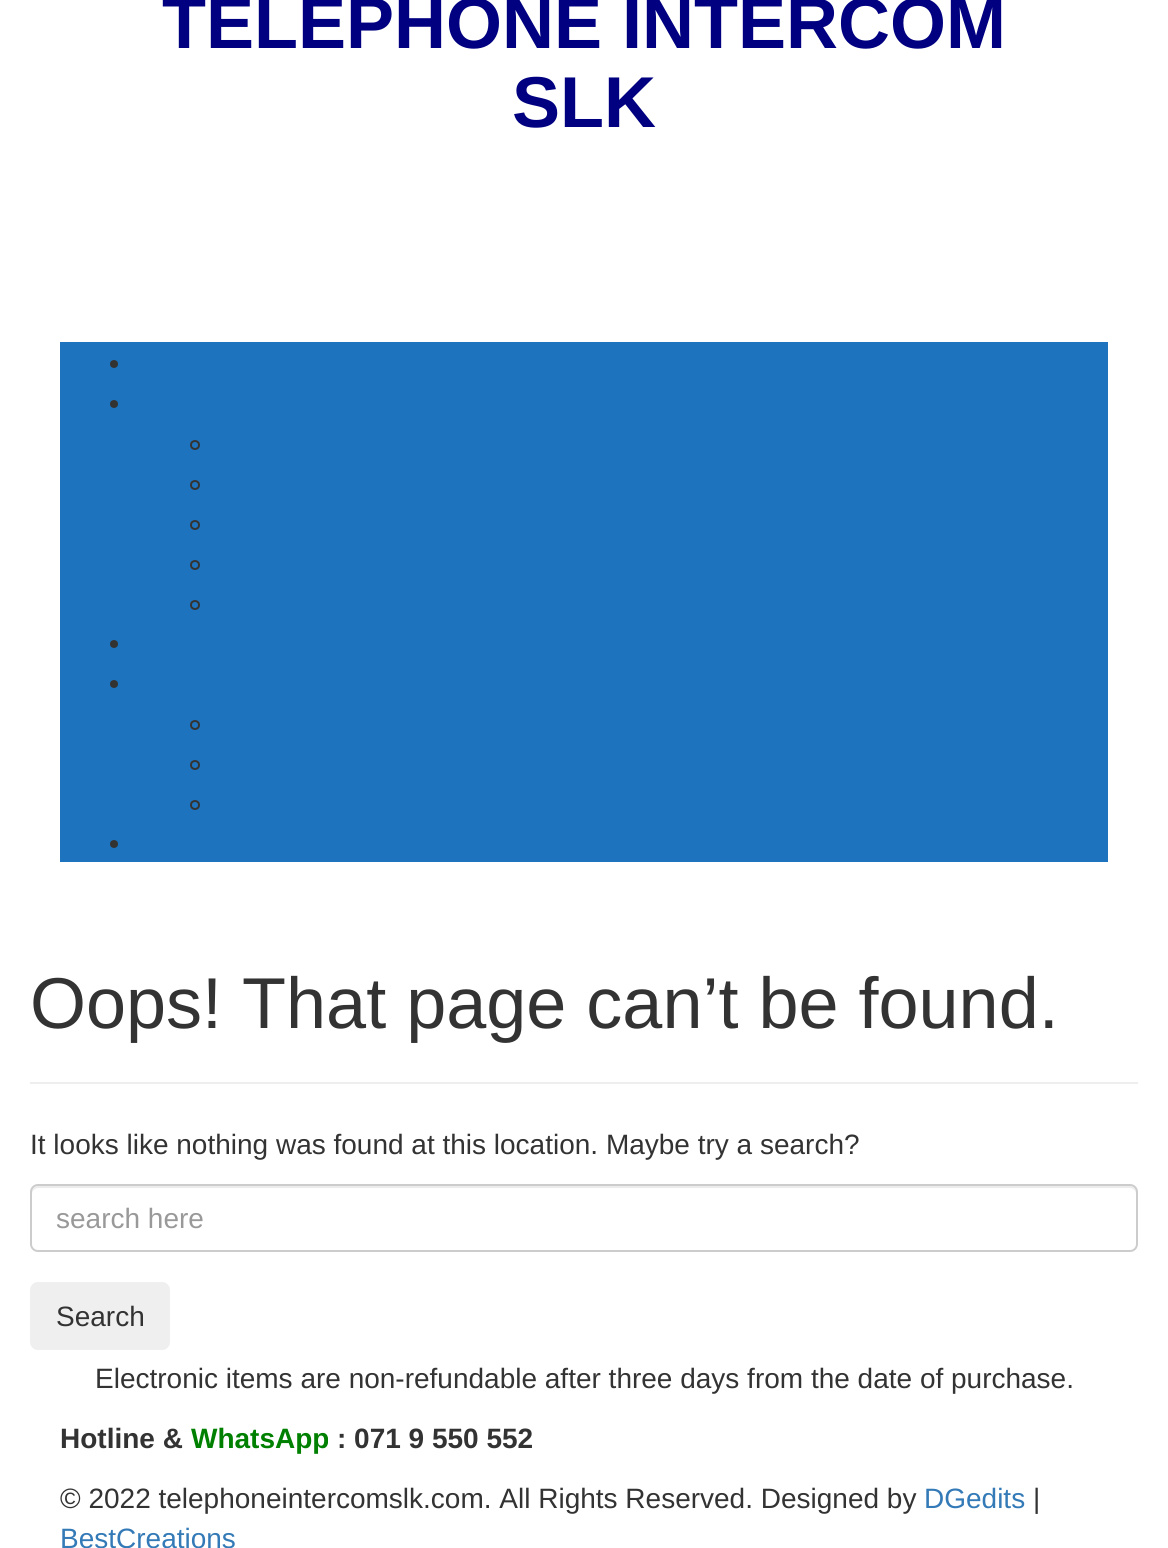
#include <cairo/cairo.h>
#include <math.h>
#include <stddef.h>

static cairo_t *cr;

static void use_color(int r, int g, int b) {
  cairo_set_source_rgb(cr, r / 255.0, g / 255.0, b / 255.0);
}

static void text(double x, double y, const char *s, const char *family, double size, int italic, int bold, int r, int g, int b) {
  cairo_select_font_face(cr, family, italic ? CAIRO_FONT_SLANT_ITALIC : CAIRO_FONT_SLANT_NORMAL,
    bold ? CAIRO_FONT_WEIGHT_BOLD : CAIRO_FONT_WEIGHT_NORMAL);
  cairo_set_font_size(cr, size);
  use_color(r, g, b);
  cairo_move_to(cr, x, y);
  cairo_show_text(cr, s);
}

static void box(double x, double y, double w, double h, int r, int g, int b) {
  use_color(r, g, b);
  cairo_rectangle(cr, x, y, w, h);
  cairo_fill(cr);
}

static void round_rect(double x, double y, double w, double h, double r) {
  cairo_new_sub_path(cr);
  cairo_arc(cr, x + w - r, y + h - r, r, 0, M_PI / 2);
  cairo_arc(cr, x + r, y + h - r, r, M_PI / 2, M_PI);
  cairo_arc(cr, x + r, y + r, r, M_PI, 1.5 * M_PI);
  cairo_arc(cr, x + w - r, y + r, r, 1.5 * M_PI, 2 * M_PI);
  cairo_close_path(cr);
}

static void draw(void) {
  use_color(255, 255, 255);
  cairo_paint(cr);
  box(60, 342, 1048, 520, 30, 115, 190);
  use_color(51, 51, 51);
  cairo_arc(cr, 114, 364, 4, 0, 2 * M_PI);
  cairo_fill(cr);
  cairo_arc(cr, 114, 404, 4, 0, 2 * M_PI);
  cairo_fill(cr);
  cairo_arc(cr, 195, 445, 4, 0, 2 * M_PI);
  cairo_stroke(cr);
  cairo_arc(cr, 195, 485, 4, 0, 2 * M_PI);
  cairo_stroke(cr);
  cairo_arc(cr, 195, 525, 4, 0, 2 * M_PI);
  cairo_stroke(cr);
  cairo_arc(cr, 195, 565, 4, 0, 2 * M_PI);
  cairo_stroke(cr);
  cairo_arc(cr, 195, 605, 4, 0, 2 * M_PI);
  cairo_stroke(cr);
  cairo_arc(cr, 114, 644, 4, 0, 2 * M_PI);
  cairo_fill(cr);
  cairo_arc(cr, 114, 684, 4, 0, 2 * M_PI);
  cairo_fill(cr);
  cairo_arc(cr, 195, 725, 4, 0, 2 * M_PI);
  cairo_stroke(cr);
  cairo_arc(cr, 195, 765, 4, 0, 2 * M_PI);
  cairo_stroke(cr);
  cairo_arc(cr, 195, 805, 4, 0, 2 * M_PI);
  cairo_stroke(cr);
  cairo_arc(cr, 114, 844, 4, 0, 2 * M_PI);
  cairo_fill(cr);
  box(30, 1082, 1108, 2, 238, 238, 238);
  use_color(236, 236, 236);
  cairo_new_path(cr);
  cairo_move_to(cr, 38, 1188);
  cairo_line_to(cr, 1130, 1188);
  cairo_curve_to(cr, 1133, 1188, 1136, 1191, 1136, 1194);
  cairo_line_to(cr, 1136, 1192);
  cairo_curve_to(cr, 1136, 1189, 1133, 1186, 1130, 1186);
  cairo_line_to(cr, 38, 1186);
  cairo_curve_to(cr, 35, 1186, 32, 1189, 32, 1192);
  cairo_line_to(cr, 32, 1194);
  cairo_curve_to(cr, 32, 1191, 35, 1188, 38, 1188);
  cairo_close_path(cr);
  cairo_fill(cr);
  round_rect(31, 1185, 1106, 66, 7);
  use_color(204, 204, 204);
  cairo_stroke(cr);
  use_color(239, 239, 239);
  round_rect(30, 1282, 140, 68, 8);
  cairo_fill(cr);
  text(162, 48, "TELEPHONE INTERCOM", "Liberation Sans", 72, 0, 1, 0, 0, 128);
  text(512, 127, "SLK", "Liberation Sans", 72, 0, 1, 0, 0, 128);
  text(30, 1028, "Oops! That page can’t be found.", "Liberation Sans", 72, 0, 0, 51, 51, 51);
  text(30, 1154, "It looks like nothing was found at this location. Maybe try a search?", "Liberation Sans", 28, 0, 0, 51, 51, 51);
  text(56, 1228, "search here", "Liberation Sans", 28, 0, 0, 153, 153, 153);
  text(56, 1326, "Search", "Liberation Sans", 28, 0, 0, 51, 51, 51);
  text(95, 1388, "Electronic items are non-refundable after three days from the date of purchase.", "Liberation Sans", 28, 0, 0, 51, 51, 51);
  text(60, 1448, "Hotline &", "Liberation Sans", 28, 0, 1, 51, 51, 51);
  text(191, 1448, "WhatsApp", "Liberation Sans", 28, 0, 1, 0, 128, 0);
  text(337, 1448, ": 071 9 550 552", "Liberation Sans", 28, 0, 1, 51, 51, 51);
  text(60, 1508, "© 2022 telephoneintercomslk.com. All Rights Reserved. Designed by", "Liberation Sans", 28, 0, 0, 51, 51, 51);
  text(924, 1508, "DGedits", "Liberation Sans", 28, 0, 0, 51, 122, 183);
  text(1033, 1508, "|", "Liberation Sans", 28, 0, 0, 51, 51, 51);
  text(60, 1548, "BestCreations", "Liberation Sans", 28, 0, 0, 51, 122, 183);
}

int main(void) {
  cairo_surface_t *surface = cairo_image_surface_create(CAIRO_FORMAT_RGB24, 1168, 1548);
  cr = cairo_create(surface);
  cairo_font_options_t *options = cairo_font_options_create();
  cairo_font_options_set_hint_metrics(options, CAIRO_HINT_METRICS_OFF);
  cairo_font_options_set_hint_style(options, CAIRO_HINT_STYLE_NONE);
  cairo_set_font_options(cr, options);
  cairo_set_miter_limit(cr, 4);
  draw();
  cairo_surface_write_to_png(surface, "out.png");
  cairo_font_options_destroy(options);
  cairo_destroy(cr);
  cairo_surface_destroy(surface);
  return 0;
}
